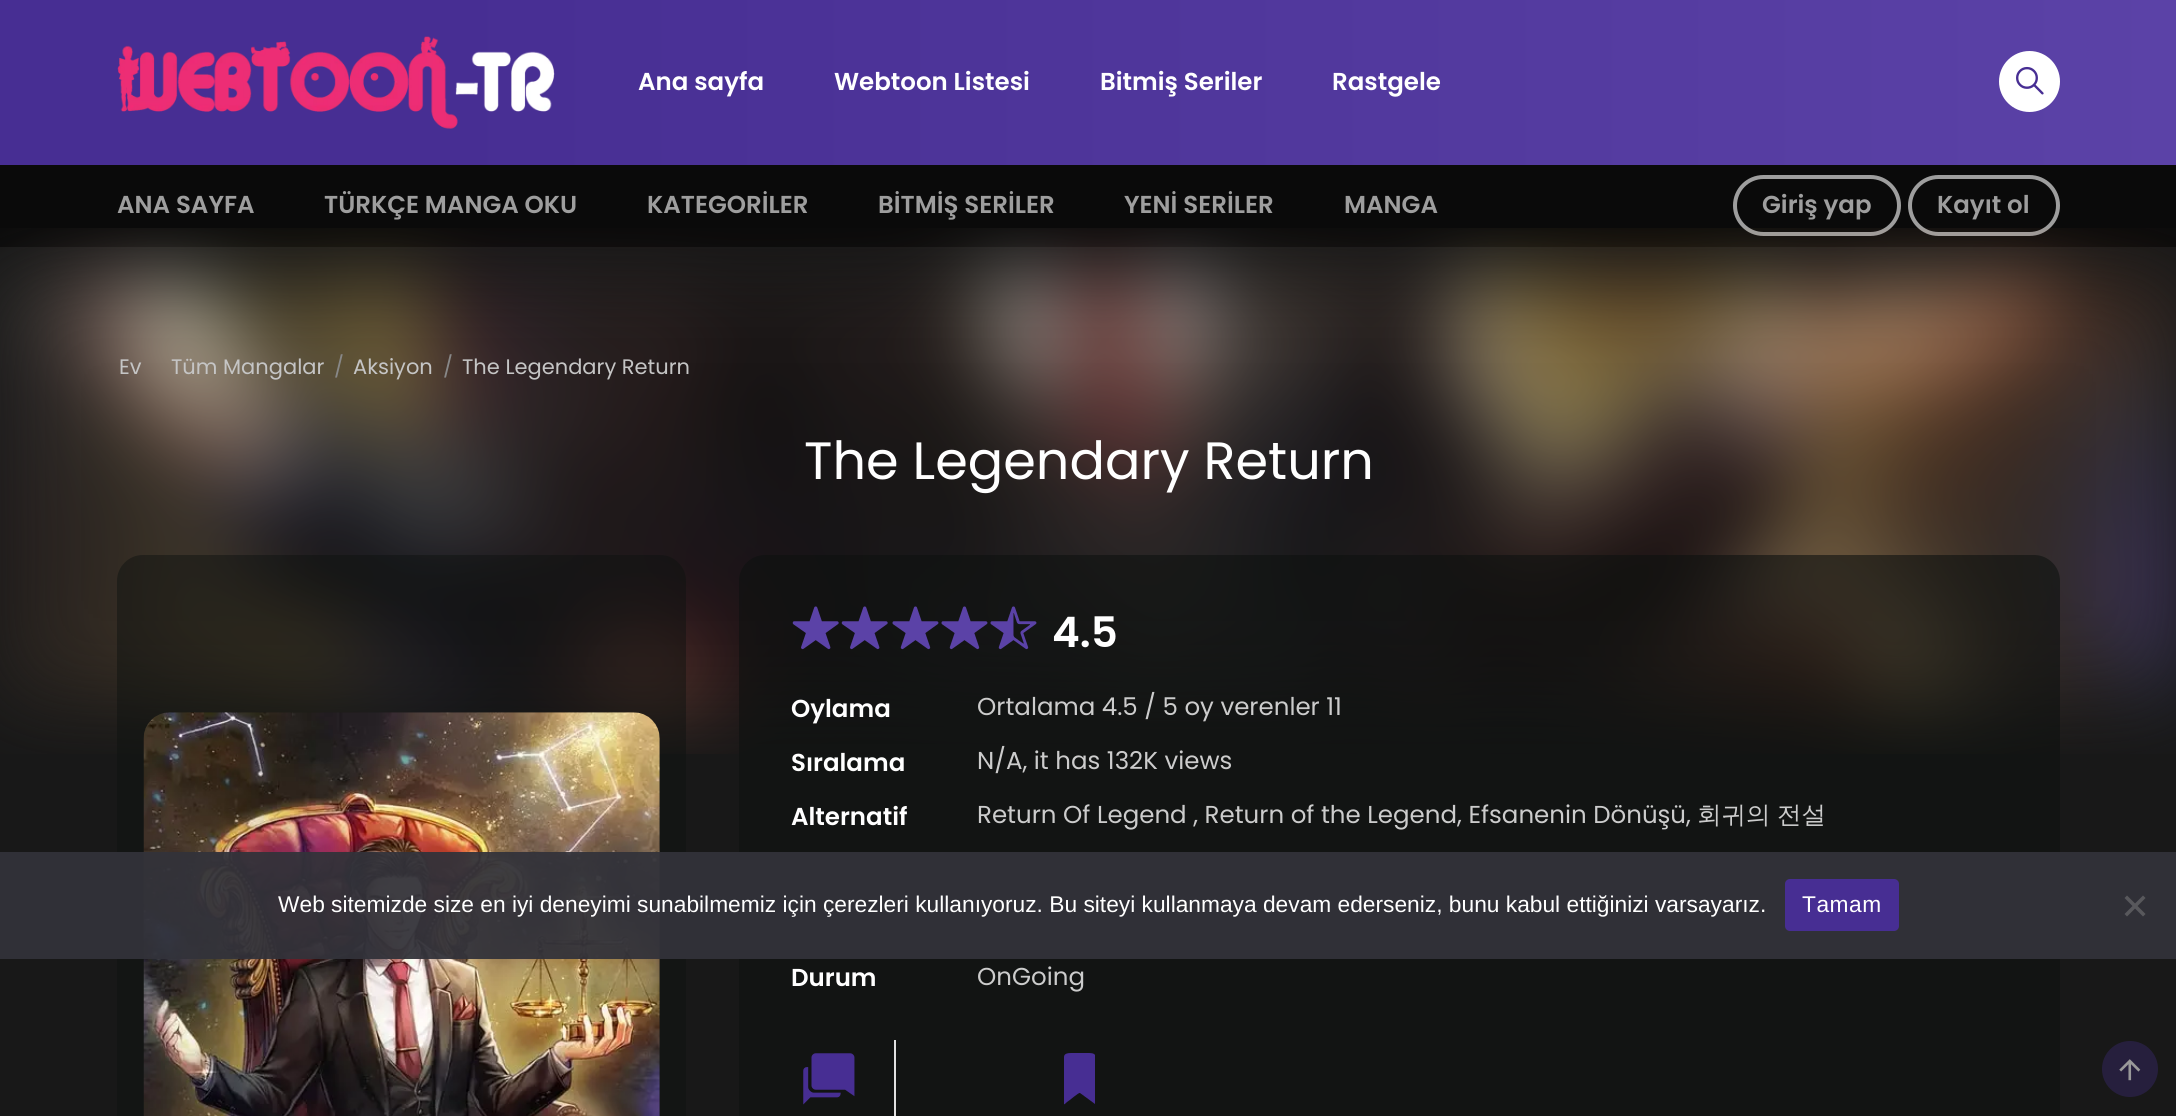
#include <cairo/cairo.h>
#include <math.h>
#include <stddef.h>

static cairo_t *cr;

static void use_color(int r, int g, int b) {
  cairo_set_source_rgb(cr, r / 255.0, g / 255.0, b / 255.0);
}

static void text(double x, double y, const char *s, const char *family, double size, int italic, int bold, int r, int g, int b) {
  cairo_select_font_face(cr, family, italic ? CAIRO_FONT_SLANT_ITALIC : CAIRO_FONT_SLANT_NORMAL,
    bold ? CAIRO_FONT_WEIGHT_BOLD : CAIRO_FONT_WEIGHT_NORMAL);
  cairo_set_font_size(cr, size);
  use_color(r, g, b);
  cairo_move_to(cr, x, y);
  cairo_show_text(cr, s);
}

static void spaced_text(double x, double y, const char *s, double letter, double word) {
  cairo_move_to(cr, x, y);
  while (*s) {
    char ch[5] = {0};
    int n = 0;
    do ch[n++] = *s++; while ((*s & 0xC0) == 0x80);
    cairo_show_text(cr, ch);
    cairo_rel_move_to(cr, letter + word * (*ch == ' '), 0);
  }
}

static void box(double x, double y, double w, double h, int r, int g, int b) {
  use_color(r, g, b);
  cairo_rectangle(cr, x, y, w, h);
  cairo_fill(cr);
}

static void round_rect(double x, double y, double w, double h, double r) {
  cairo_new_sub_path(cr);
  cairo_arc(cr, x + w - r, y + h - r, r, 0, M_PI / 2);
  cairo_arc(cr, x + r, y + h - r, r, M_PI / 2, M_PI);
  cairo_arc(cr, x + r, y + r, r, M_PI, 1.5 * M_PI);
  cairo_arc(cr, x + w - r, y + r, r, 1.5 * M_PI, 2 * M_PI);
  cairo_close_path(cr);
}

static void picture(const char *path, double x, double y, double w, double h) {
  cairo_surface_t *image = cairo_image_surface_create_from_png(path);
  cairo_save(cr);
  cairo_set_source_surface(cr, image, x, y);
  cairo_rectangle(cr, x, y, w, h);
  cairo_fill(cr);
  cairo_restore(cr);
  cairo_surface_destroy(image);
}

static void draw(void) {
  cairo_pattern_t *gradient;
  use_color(24, 24, 24);
  cairo_paint(cr);
  gradient = cairo_pattern_create_linear(0, 82, 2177, 82);
  cairo_pattern_add_color_stop_rgba(gradient, 0.2, 0.278, 0.18, 0.576, 1);
  cairo_pattern_add_color_stop_rgba(gradient, 1, 0.357, 0.259, 0.655, 1);
  cairo_set_source(cr, gradient);
  cairo_pattern_destroy(gradient);
  cairo_rectangle(cr, 0, 0, 2176, 165);
  cairo_fill(cr);
  picture("img_01.png", 117, 36, 438, 93);
  use_color(255, 255, 255);
  cairo_arc(cr, 2029.5, 81.5, 30.5, 0, 2 * M_PI);
  cairo_fill(cr);
  picture("img_02.png", 2016, 66, 28, 29);
  box(0, 165, 2176, 82, 10, 10, 10);
  round_rect(1735, 177, 164, 57, 28.5);
  use_color(158, 158, 158);
  cairo_set_line_width(cr, 4);
  cairo_stroke(cr);
  round_rect(1910, 177, 148, 57, 28.5);
  cairo_stroke(cr);
  picture("img_03.png", 0, 228, 2176, 526);
  cairo_set_source_rgba(cr, 0.055, 0.067, 0.063, 0.47);
  round_rect(117, 555, 569, 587, 26);
  cairo_fill(cr);
  picture("img_04.png", 143, 712, 517, 404);
  cairo_set_source_rgba(cr, 0.055, 0.067, 0.063, 0.6);
  round_rect(739, 555, 1321, 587, 26);
  cairo_fill(cr);
  picture("img_05.png", 792, 606, 47, 44);
  picture("img_06.png", 841, 606, 47, 44);
  picture("img_07.png", 892, 606, 47, 44);
  picture("img_08.png", 941, 606, 47, 44);
  picture("img_09.png", 990, 606, 47, 44);
  box(894, 1040, 2, 76, 225, 225, 225);
  picture("img_10.png", 803, 1053, 52, 52);
  use_color(71, 46, 147);
  cairo_new_path(cr);
  cairo_move_to(cr, 1064, 1057);
  cairo_curve_to(cr, 1064, 1053, 1069, 1053, 1072, 1053);
  cairo_line_to(cr, 1088, 1053);
  cairo_curve_to(cr, 1090, 1053, 1094, 1053, 1095, 1055);
  cairo_line_to(cr, 1095, 1104);
  cairo_line_to(cr, 1080, 1093);
  cairo_curve_to(cr, 1079, 1092, 1069, 1101, 1067, 1102);
  cairo_curve_to(cr, 1066, 1103, 1064, 1105, 1064, 1104);
  cairo_close_path(cr);
  cairo_fill(cr);
  cairo_set_source_rgba(cr, 0.196, 0.196, 0.227, 0.94);
  cairo_rectangle(cr, 0, 852, 2176, 107);
  cairo_fill(cr);
  use_color(71, 46, 147);
  round_rect(1785, 879, 114, 52, 5);
  cairo_fill(cr);
  use_color(88, 88, 92);
  cairo_new_path(cr);
  cairo_move_to(cr, 2143, 895.5);
  cairo_line_to(cr, 2145.5, 898);
  cairo_line_to(cr, 2127, 916.5);
  cairo_line_to(cr, 2124.5, 914);
  cairo_close_path(cr);
  cairo_fill(cr);
  cairo_new_path(cr);
  cairo_move_to(cr, 2124.5, 898);
  cairo_line_to(cr, 2127, 895.5);
  cairo_line_to(cr, 2145.5, 914);
  cairo_line_to(cr, 2143, 916.5);
  cairo_close_path(cr);
  cairo_fill(cr);
  use_color(38, 31, 61);
  cairo_arc(cr, 2130, 1069, 28, 0, 2 * M_PI);
  cairo_fill(cr);
  picture("img_11.png", 2119, 1059, 22, 22);
  text(638, 90, "Ana sayfa", "Poppins SemiBold", 24.5, 0, 0, 255, 255, 255);
  text(834, 90, "Webtoon Listesi", "Poppins SemiBold", 24.5, 0, 0, 255, 255, 255);
  text(1100, 90, "Bitmiş Seriler", "Poppins SemiBold", 24.5, 0, 0, 255, 255, 255);
  text(1332, 90, "Rastgele", "Poppins SemiBold", 24.5, 0, 0, 255, 255, 255);
  text(117, 213, "ANA SAYFA", "Poppins SemiBold", 24.5, 0, 0, 158, 158, 158);
  text(324, 213, "TÜRKÇE MANGA OKU", "Poppins SemiBold", 24.5, 0, 0, 158, 158, 158);
  text(647, 213, "KATEGORİLER", "Poppins SemiBold", 24.5, 0, 0, 158, 158, 158);
  text(878, 213, "BİTMİŞ SERİLER", "Poppins SemiBold", 24.5, 0, 0, 158, 158, 158);
  text(1124, 213, "YENİ SERİLER", "Poppins SemiBold", 24.5, 0, 0, 158, 158, 158);
  text(1344, 213, "MANGA", "Poppins SemiBold", 24.5, 0, 0, 158, 158, 158);
  text(1762, 213, "Giriş yap", "Poppins SemiBold", 24.5, 0, 0, 158, 158, 158);
  text(1937, 213, "Kayıt ol", "Poppins SemiBold", 24.5, 0, 0, 158, 158, 158);
  text(119, 374, "Ev", "Poppins", 21, 0, 0, 197, 197, 197);
  text(171, 374, "Tüm Mangalar", "Poppins", 21, 0, 0, 197, 197, 197);
  text(334, 374, "/", "Poppins", 21, 0, 0, 136, 136, 136);
  text(353, 374, "Aksiyon", "Poppins", 21, 0, 0, 197, 197, 197);
  text(443, 374, "/", "Poppins", 21, 0, 0, 136, 136, 136);
  text(462, 374, "The Legendary Return", "Poppins", 21, 0, 0, 197, 197, 197);
  text(804, 479, "The Legendary Return", "Poppins", 52.5, 0, 0, 255, 255, 255);
  text(1052, 647, "4.5", "Poppins SemiBold", 42, 0, 0, 255, 255, 255);
  text(791, 717, "Oylama", "Poppins SemiBold", 24.5, 0, 0, 255, 255, 255);
  text(977, 715, "Ortalama 4.5 / 5 oy verenler 11", "Poppins", 24.5, 0, 0, 204, 204, 204);
  text(791, 771, "Sıralama", "Poppins SemiBold", 24.5, 0, 0, 255, 255, 255);
  text(977, 769, "N/A, it has 132K views", "Poppins", 24.5, 0, 0, 204, 204, 204);
  text(791, 825, "Alternatif", "Poppins SemiBold", 24.5, 0, 0, 255, 255, 255);
  text(977, 823, "Return Of Legend , Return of the Legend, Efsanenin Dönüşü,", "Poppins", 24.5, 0, 0, 204, 204, 204);
  text(1697, 823, "회귀의", "WenQuanYi Zen Hei Medium", 24.5, 0, 0, 204, 204, 204);
  text(1777, 823, "전설", "WenQuanYi Zen Hei Medium", 24.5, 0, 0, 204, 204, 204);
  text(791, 986, "Durum", "Poppins SemiBold", 24.5, 0, 0, 255, 255, 255);
  text(977, 985, "OnGoing", "Poppins", 24.5, 0, 0, 204, 204, 204);
  text(278, 912, "Web sitemizde size en iyi deneyimi sunabilmemiz için çerezleri kullanıyoruz. Bu siteyi kullanmaya devam ederseniz, bunu kabul ettiğinizi varsayarız.", "Liberation Sans", 22.75, 0, 0, 255, 255, 255);
  spaced_text(1802, 912, "Tamam", 0.5, 0);
}

int main(void) {
  cairo_surface_t *surface = cairo_image_surface_create(CAIRO_FORMAT_RGB24, 2176, 1116);
  cr = cairo_create(surface);
  cairo_font_options_t *options = cairo_font_options_create();
  cairo_font_options_set_hint_metrics(options, CAIRO_HINT_METRICS_OFF);
  cairo_font_options_set_hint_style(options, CAIRO_HINT_STYLE_NONE);
  cairo_set_font_options(cr, options);
  cairo_set_miter_limit(cr, 4);
  draw();
  cairo_surface_write_to_png(surface, "out.png");
  cairo_font_options_destroy(options);
  cairo_destroy(cr);
  cairo_surface_destroy(surface);
  return 0;
}
